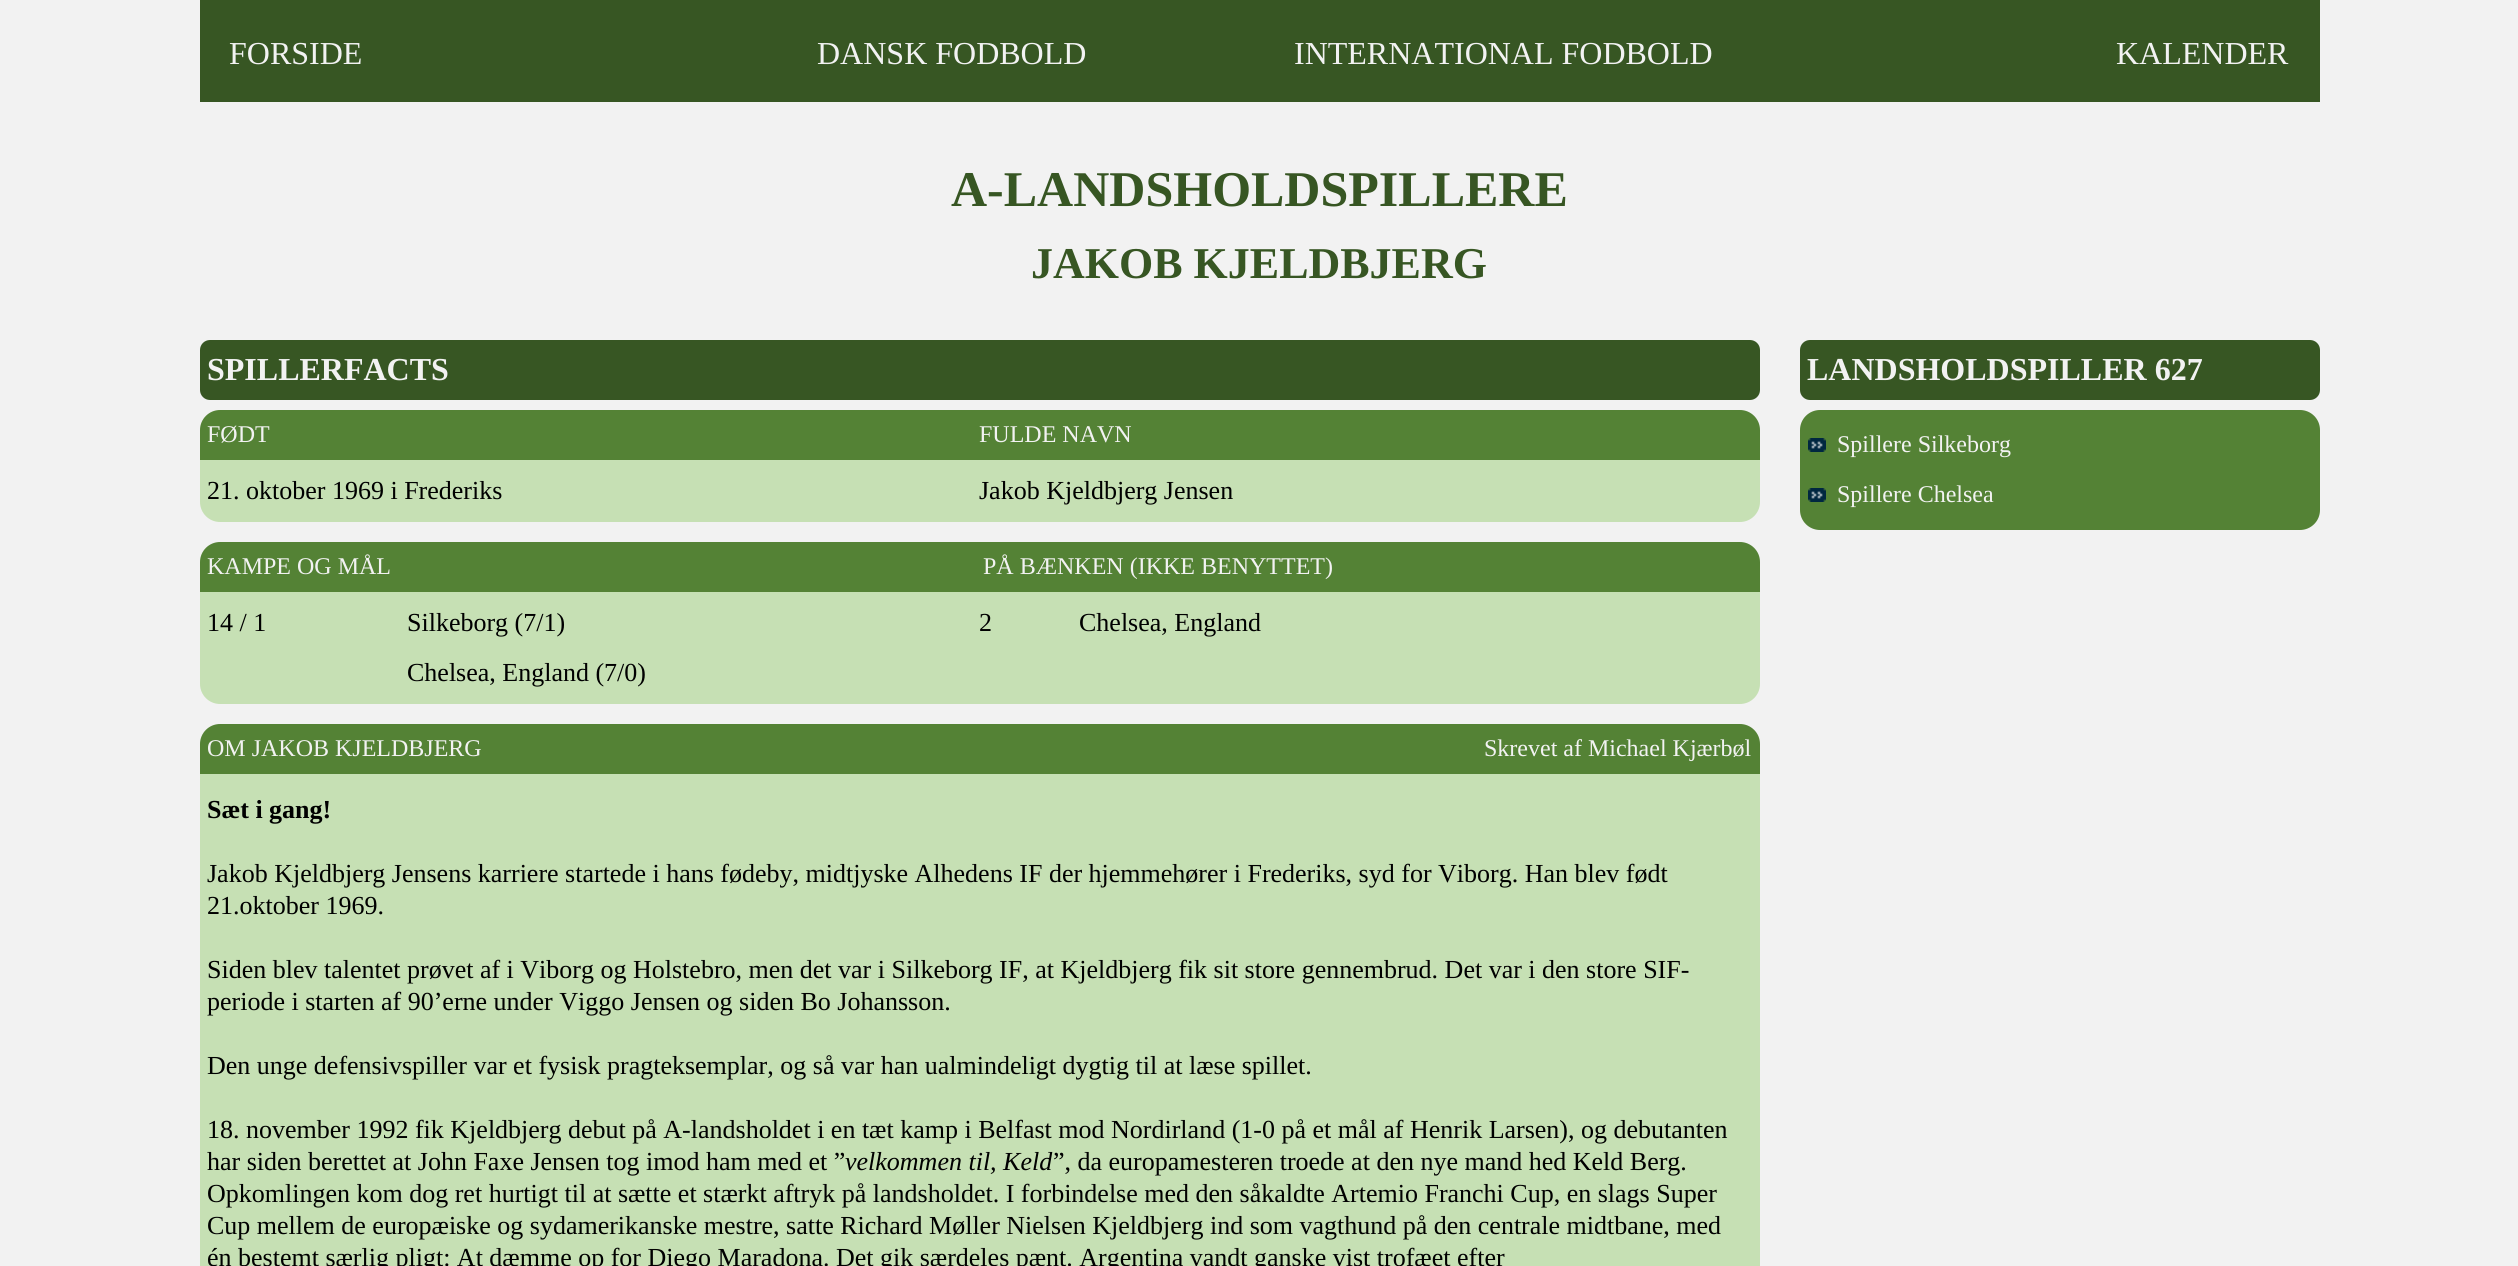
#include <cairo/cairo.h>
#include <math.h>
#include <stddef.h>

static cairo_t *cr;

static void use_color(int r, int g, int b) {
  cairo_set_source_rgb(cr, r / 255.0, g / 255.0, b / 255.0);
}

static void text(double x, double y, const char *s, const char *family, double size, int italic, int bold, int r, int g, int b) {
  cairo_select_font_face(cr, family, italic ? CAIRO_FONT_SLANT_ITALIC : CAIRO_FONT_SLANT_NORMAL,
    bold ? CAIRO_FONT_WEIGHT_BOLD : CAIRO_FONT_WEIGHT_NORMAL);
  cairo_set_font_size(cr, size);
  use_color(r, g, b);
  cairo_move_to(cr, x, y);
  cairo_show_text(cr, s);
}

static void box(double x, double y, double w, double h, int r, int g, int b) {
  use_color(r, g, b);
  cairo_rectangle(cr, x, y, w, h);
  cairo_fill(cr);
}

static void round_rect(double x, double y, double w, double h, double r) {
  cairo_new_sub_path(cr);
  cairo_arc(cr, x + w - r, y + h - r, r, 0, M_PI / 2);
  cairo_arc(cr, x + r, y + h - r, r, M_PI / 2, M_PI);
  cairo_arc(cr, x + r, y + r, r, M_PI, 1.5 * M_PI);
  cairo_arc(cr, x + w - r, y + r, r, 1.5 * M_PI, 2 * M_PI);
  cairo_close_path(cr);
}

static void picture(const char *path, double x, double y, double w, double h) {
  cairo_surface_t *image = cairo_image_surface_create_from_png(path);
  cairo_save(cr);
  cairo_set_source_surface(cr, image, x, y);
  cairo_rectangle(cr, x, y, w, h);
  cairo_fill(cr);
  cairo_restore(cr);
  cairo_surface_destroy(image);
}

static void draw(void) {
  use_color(242, 242, 242);
  cairo_paint(cr);
  box(200, 0, 2120, 102, 55, 86, 35);
  round_rect(200, 340, 1560, 60, 10);
  cairo_fill(cr);
  use_color(84, 130, 53);
  cairo_new_path(cr);
  cairo_move_to(cr, 220, 410);
  cairo_line_to(cr, 1740, 410);
  cairo_curve_to(cr, 1751, 410, 1760, 419, 1760, 430);
  cairo_line_to(cr, 1760, 460);
  cairo_line_to(cr, 200, 460);
  cairo_line_to(cr, 200, 430);
  cairo_curve_to(cr, 200, 419, 209, 410, 220, 410);
  cairo_close_path(cr);
  cairo_fill(cr);
  use_color(198, 224, 180);
  cairo_new_path(cr);
  cairo_move_to(cr, 200, 460);
  cairo_line_to(cr, 1760, 460);
  cairo_line_to(cr, 1760, 502);
  cairo_curve_to(cr, 1760, 513, 1751, 522, 1740, 522);
  cairo_line_to(cr, 220, 522);
  cairo_curve_to(cr, 209, 522, 200, 513, 200, 502);
  cairo_close_path(cr);
  cairo_fill(cr);
  use_color(84, 130, 53);
  cairo_new_path(cr);
  cairo_move_to(cr, 220, 542);
  cairo_line_to(cr, 1740, 542);
  cairo_curve_to(cr, 1751, 542, 1760, 551, 1760, 562);
  cairo_line_to(cr, 1760, 592);
  cairo_line_to(cr, 200, 592);
  cairo_line_to(cr, 200, 562);
  cairo_curve_to(cr, 200, 551, 209, 542, 220, 542);
  cairo_close_path(cr);
  cairo_fill(cr);
  use_color(198, 224, 180);
  cairo_new_path(cr);
  cairo_move_to(cr, 200, 592);
  cairo_line_to(cr, 1760, 592);
  cairo_line_to(cr, 1760, 684);
  cairo_curve_to(cr, 1760, 695, 1751, 704, 1740, 704);
  cairo_line_to(cr, 220, 704);
  cairo_curve_to(cr, 209, 704, 200, 695, 200, 684);
  cairo_close_path(cr);
  cairo_fill(cr);
  use_color(84, 130, 53);
  cairo_new_path(cr);
  cairo_move_to(cr, 220, 724);
  cairo_line_to(cr, 1740, 724);
  cairo_curve_to(cr, 1751, 724, 1760, 733, 1760, 744);
  cairo_line_to(cr, 1760, 774);
  cairo_line_to(cr, 200, 774);
  cairo_line_to(cr, 200, 744);
  cairo_curve_to(cr, 200, 733, 209, 724, 220, 724);
  cairo_close_path(cr);
  cairo_fill(cr);
  box(200, 774, 1560, 492, 198, 224, 180);
  use_color(55, 86, 35);
  round_rect(1800, 340, 520, 60, 10);
  cairo_fill(cr);
  use_color(84, 130, 53);
  round_rect(1800, 410, 520, 120, 20);
  cairo_fill(cr);
  picture("img_01.png", 1808, 438, 18, 14);
  picture("img_01.png", 1808, 488, 18, 14);
  text(229, 64, "FORSIDE", "Liberation Serif", 32, 0, 0, 242, 242, 242);
  text(817, 64, "DANSK FODBOLD", "Liberation Serif", 32, 0, 0, 242, 242, 242);
  text(1294, 64, "INTERNATIONAL FODBOLD", "Liberation Serif", 32, 0, 0, 242, 242, 242);
  text(2116, 64, "KALENDER", "Liberation Serif", 32, 0, 0, 242, 242, 242);
  text(951, 206, "A-LANDSHOLDSPILLERE", "Liberation Serif", 50, 0, 1, 55, 86, 35);
  text(1031, 278, "JAKOB KJELDBJERG", "Liberation Serif", 44, 0, 1, 55, 86, 35);
  text(207, 380, "SPILLERFACTS", "Liberation Serif", 32, 0, 1, 242, 242, 242);
  text(207, 442, "FØDT", "Liberation Serif", 24, 0, 0, 242, 242, 242);
  text(979, 442, "FULDE NAVN", "Liberation Serif", 24, 0, 0, 242, 242, 242);
  text(207, 499, "21. oktober 1969 i Frederiks", "Liberation Serif", 26, 0, 0, 0, 0, 0);
  text(979, 499, "Jakob Kjeldbjerg Jensen", "Liberation Serif", 26, 0, 0, 0, 0, 0);
  text(207, 574, "KAMPE OG MÅL", "Liberation Serif", 24, 0, 0, 242, 242, 242);
  text(983, 574, "PÅ BÆNKEN (IKKE BENYTTET)", "Liberation Serif", 24, 0, 0, 242, 242, 242);
  text(207, 631, "14 / 1", "Liberation Serif", 26, 0, 0, 0, 0, 0);
  text(407, 631, "Silkeborg (7/1)", "Liberation Serif", 26, 0, 0, 0, 0, 0);
  text(979, 631, "2", "Liberation Serif", 26, 0, 0, 0, 0, 0);
  text(1079, 631, "Chelsea, England", "Liberation Serif", 26, 0, 0, 0, 0, 0);
  text(407, 681, "Chelsea, England (7/0)", "Liberation Serif", 26, 0, 0, 0, 0, 0);
  text(207, 756, "OM JAKOB KJELDBJERG", "Liberation Serif", 24, 0, 0, 242, 242, 242);
  text(1484, 756, "Skrevet af Michael Kjærbøl", "Liberation Serif", 24, 0, 0, 242, 242, 242);
  text(207, 818, "Sæt i gang!", "Liberation Serif", 26, 0, 1, 0, 0, 0);
  text(207, 882, "Jakob Kjeldbjerg Jensens karriere startede i hans fødeby, midtjyske Alhedens IF der hjemmehører i Frederiks, syd for Viborg. Han blev født", "Liberation Serif", 26, 0, 0, 0, 0, 0);
  text(207, 914, "21.oktober 1969.", "Liberation Serif", 26, 0, 0, 0, 0, 0);
  text(207, 978, "Siden blev talentet prøvet af i Viborg og Holstebro, men det var i Silkeborg IF, at Kjeldbjerg fik sit store gennembrud. Det var i den store SIF-", "Liberation Serif", 26, 0, 0, 0, 0, 0);
  text(207, 1010, "periode i starten af 90’erne under Viggo Jensen og siden Bo Johansson.", "Liberation Serif", 26, 0, 0, 0, 0, 0);
  text(207, 1074, "Den unge defensivspiller var et fysisk pragteksemplar, og så var han ualmindeligt dygtig til at læse spillet.", "Liberation Serif", 26, 0, 0, 0, 0, 0);
  text(207, 1138, "18. november 1992 fik Kjeldbjerg debut på A-landsholdet i en tæt kamp i Belfast mod Nordirland (1-0 på et mål af Henrik Larsen), og debutanten", "Liberation Serif", 26, 0, 0, 0, 0, 0);
  text(207, 1170, "har siden berettet at John Faxe Jensen tog imod ham med et ”", "Liberation Serif", 26, 0, 0, 0, 0, 0);
  text(845, 1170, "velkommen til, Keld", "Liberation Serif", 26, 1, 0, 0, 0, 0);
  text(1053, 1170, "”, da europamesteren troede at den nye mand hed Keld Berg.", "Liberation Serif", 26, 0, 0, 0, 0, 0);
  text(207, 1202, "Opkomlingen kom dog ret hurtigt til at sætte et stærkt aftryk på landsholdet. I forbindelse med den såkaldte Artemio Franchi Cup, en slags Super", "Liberation Serif", 26, 0, 0, 0, 0, 0);
  text(207, 1234, "Cup mellem de europæiske og sydamerikanske mestre, satte Richard Møller Nielsen Kjeldbjerg ind som vagthund på den centrale midtbane, med", "Liberation Serif", 26, 0, 0, 0, 0, 0);
  text(207, 1266, "én bestemt særlig pligt: At dæmme op for Diego Maradona. Det gik særdeles pænt. Argentina vandt ganske vist trofæet efter", "Liberation Serif", 26, 0, 0, 0, 0, 0);
  text(1807, 380, "LANDSHOLDSPILLER 627", "Liberation Serif", 32, 0, 1, 242, 242, 242);
  text(1837, 452, "Spillere Silkeborg", "Liberation Serif", 24, 0, 0, 242, 242, 242);
  text(1837, 502, "Spillere Chelsea", "Liberation Serif", 24, 0, 0, 242, 242, 242);
}

int main(void) {
  cairo_surface_t *surface = cairo_image_surface_create(CAIRO_FORMAT_RGB24, 2518, 1266);
  cr = cairo_create(surface);
  cairo_font_options_t *options = cairo_font_options_create();
  cairo_font_options_set_hint_metrics(options, CAIRO_HINT_METRICS_OFF);
  cairo_font_options_set_hint_style(options, CAIRO_HINT_STYLE_NONE);
  cairo_set_font_options(cr, options);
  cairo_set_miter_limit(cr, 4);
  draw();
  cairo_surface_write_to_png(surface, "out.png");
  cairo_font_options_destroy(options);
  cairo_destroy(cr);
  cairo_surface_destroy(surface);
  return 0;
}
